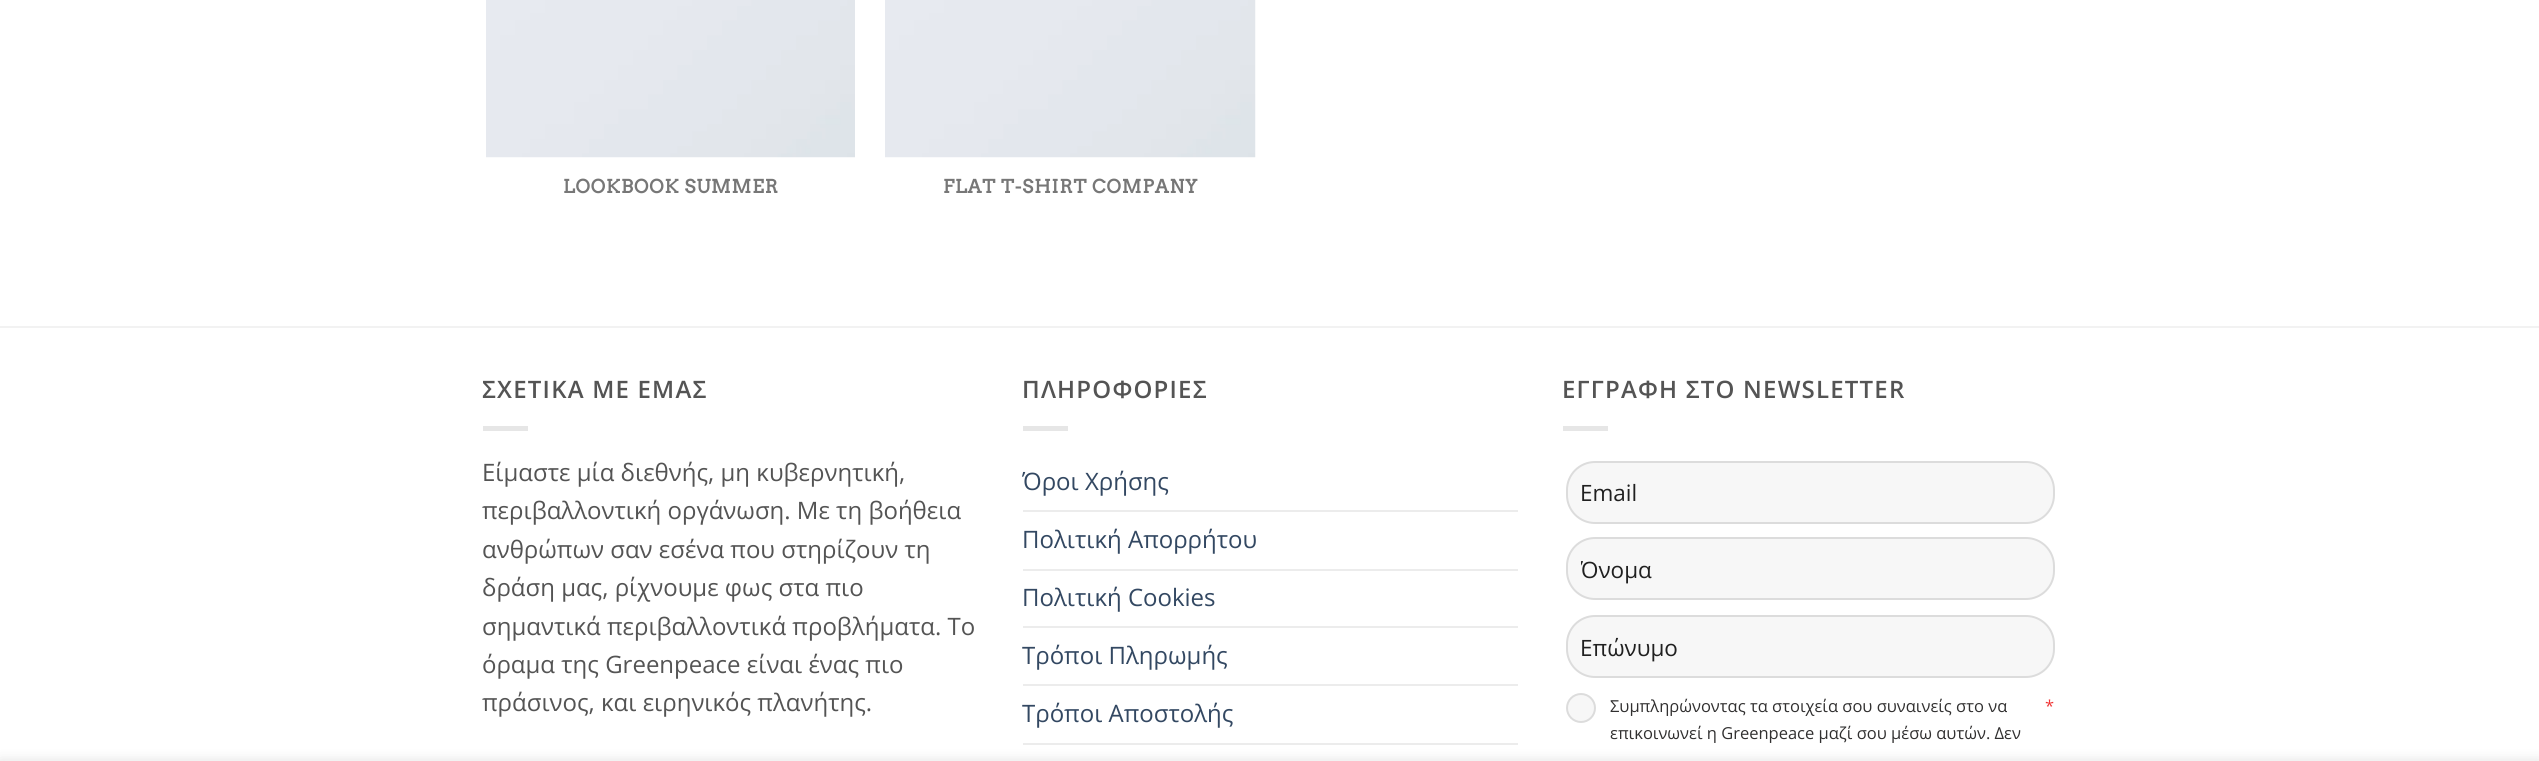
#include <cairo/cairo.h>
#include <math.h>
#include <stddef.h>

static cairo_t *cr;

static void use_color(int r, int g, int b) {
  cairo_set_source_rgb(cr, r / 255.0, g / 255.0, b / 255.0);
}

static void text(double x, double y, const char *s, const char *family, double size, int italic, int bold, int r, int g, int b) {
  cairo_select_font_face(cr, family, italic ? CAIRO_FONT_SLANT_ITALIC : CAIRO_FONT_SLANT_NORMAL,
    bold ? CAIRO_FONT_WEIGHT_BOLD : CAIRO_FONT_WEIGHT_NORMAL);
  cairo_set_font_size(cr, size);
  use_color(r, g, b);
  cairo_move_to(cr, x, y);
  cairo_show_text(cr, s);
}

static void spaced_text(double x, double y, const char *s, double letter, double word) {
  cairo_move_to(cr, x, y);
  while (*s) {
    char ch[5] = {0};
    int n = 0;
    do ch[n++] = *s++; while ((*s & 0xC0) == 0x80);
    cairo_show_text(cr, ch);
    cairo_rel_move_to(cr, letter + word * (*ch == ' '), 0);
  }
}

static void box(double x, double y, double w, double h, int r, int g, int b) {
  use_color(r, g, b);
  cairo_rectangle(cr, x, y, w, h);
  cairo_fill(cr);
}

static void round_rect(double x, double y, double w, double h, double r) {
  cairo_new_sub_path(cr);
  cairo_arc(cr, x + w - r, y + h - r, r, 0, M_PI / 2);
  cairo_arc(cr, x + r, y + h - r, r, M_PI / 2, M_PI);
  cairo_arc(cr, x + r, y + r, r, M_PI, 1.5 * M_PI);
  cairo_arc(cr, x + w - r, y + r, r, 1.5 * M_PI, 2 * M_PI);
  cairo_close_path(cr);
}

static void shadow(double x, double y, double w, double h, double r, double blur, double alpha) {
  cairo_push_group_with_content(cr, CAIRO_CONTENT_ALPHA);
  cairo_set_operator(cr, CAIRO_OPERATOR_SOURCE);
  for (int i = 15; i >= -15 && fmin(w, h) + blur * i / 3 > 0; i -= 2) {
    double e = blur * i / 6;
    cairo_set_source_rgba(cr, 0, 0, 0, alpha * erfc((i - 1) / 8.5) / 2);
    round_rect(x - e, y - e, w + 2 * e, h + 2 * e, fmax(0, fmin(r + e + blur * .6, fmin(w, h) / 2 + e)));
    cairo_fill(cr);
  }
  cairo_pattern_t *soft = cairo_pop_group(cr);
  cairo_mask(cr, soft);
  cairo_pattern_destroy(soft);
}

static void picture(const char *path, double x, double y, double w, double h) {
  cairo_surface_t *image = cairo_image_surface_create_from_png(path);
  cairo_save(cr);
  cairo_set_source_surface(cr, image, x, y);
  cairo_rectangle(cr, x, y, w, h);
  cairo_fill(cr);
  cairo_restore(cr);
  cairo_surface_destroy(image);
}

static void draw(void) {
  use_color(255, 255, 255);
  cairo_paint(cr);
  picture("img_01.png", 486, 0, 369, 158);
  picture("img_02.png", 885, 0, 371, 158);
  box(0, 326, 2539, 2, 242, 242, 242);
  box(483, 426, 45, 5, 230, 230, 230);
  box(1023, 426, 45, 5, 230, 230, 230);
  box(1023, 510, 495, 2, 236, 236, 236);
  box(1023, 569, 495, 2, 236, 236, 236);
  box(1023, 626, 495, 2, 236, 236, 236);
  box(1023, 684, 495, 2, 236, 236, 236);
  box(1023, 743, 495, 2, 236, 236, 236);
  box(1563, 426, 45, 5, 230, 230, 230);
  use_color(247, 247, 247);
  round_rect(1567, 462, 487, 61, 28);
  cairo_fill_preserve(cr);
  use_color(220, 220, 220);
  cairo_stroke(cr);
  use_color(247, 247, 247);
  round_rect(1567, 538, 487, 61, 28);
  cairo_fill_preserve(cr);
  use_color(220, 220, 220);
  cairo_stroke(cr);
  use_color(247, 247, 247);
  round_rect(1567, 616, 487, 61, 28);
  cairo_fill_preserve(cr);
  use_color(220, 220, 220);
  cairo_stroke(cr);
  use_color(247, 247, 247);
  cairo_arc(cr, 1581, 708, 14, 0, 2 * M_PI);
  cairo_fill_preserve(cr);
  use_color(220, 220, 220);
  cairo_stroke(cr);
  use_color(0, 0, 0);
  shadow(0, 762, 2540, 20, 0, 7, 0.14);
  cairo_select_font_face(cr, "Arvo", CAIRO_FONT_SLANT_NORMAL, CAIRO_FONT_WEIGHT_BOLD);
  cairo_set_font_size(cr, 18.4);
  use_color(119, 119, 119);
  spaced_text(563, 193, "LOOKBOOK SUMMER", 0.9, 0);
  spaced_text(943, 193, "FLAT T-SHIRT COMPANY", 0.9, 0);
  cairo_select_font_face(cr, "Open Sans SemiBold", CAIRO_FONT_SLANT_NORMAL, CAIRO_FONT_WEIGHT_NORMAL);
  cairo_set_font_size(cr, 24);
  use_color(84, 84, 84);
  spaced_text(482, 398, "ΣΧΕΤΙΚΑ ΜΕ ΕΜΑΣ", 1.2, 0);
  text(482, 481, "Είμαστε μία διεθνής, μη κυβερνητική,", "Open Sans", 24, 0, 0, 84, 84, 84);
  text(482, 519, "περιβαλλοντική οργάνωση. Με τη βοήθεια", "Open Sans", 24, 0, 0, 84, 84, 84);
  text(482, 558, "ανθρώπων σαν εσένα που στηρίζουν τη", "Open Sans", 24, 0, 0, 84, 84, 84);
  text(482, 596, "δράση μας, ρίχνουμε φως στα πιο", "Open Sans", 24, 0, 0, 84, 84, 84);
  text(482, 635, "σημαντικά περιβαλλοντικά προβλήματα. Το", "Open Sans", 24, 0, 0, 84, 84, 84);
  text(482, 673, "όραμα της Greenpeace είναι ένας πιο", "Open Sans", 24, 0, 0, 84, 84, 84);
  text(482, 711, "πράσινος, και ειρηνικός πλανήτης.", "Open Sans", 24, 0, 0, 84, 84, 84);
  cairo_select_font_face(cr, "Open Sans SemiBold", CAIRO_FONT_SLANT_NORMAL, CAIRO_FONT_WEIGHT_NORMAL);
  spaced_text(1022, 398, "ΠΛΗΡΟΦΟΡΙΕΣ", 1.2, 0);
  text(1022, 490, "Όροι Χρήσης", "Open Sans", 24, 0, 0, 51, 72, 98);
  text(1022, 548, "Πολιτική Απορρήτου", "Open Sans", 24, 0, 0, 51, 72, 98);
  text(1022, 606, "Πολιτική Cookies", "Open Sans", 24, 0, 0, 51, 72, 98);
  text(1022, 664, "Τρόποι Πληρωμής", "Open Sans", 24, 0, 0, 51, 72, 98);
  text(1022, 722, "Τρόποι Αποστολής", "Open Sans", 24, 0, 0, 51, 72, 98);
  cairo_select_font_face(cr, "Open Sans SemiBold", CAIRO_FONT_SLANT_NORMAL, CAIRO_FONT_WEIGHT_NORMAL);
  use_color(84, 84, 84);
  spaced_text(1562, 398, "ΕΓΓΡΑΦΗ ΣΤΟ NEWSLETTER", 1.2, 0);
  text(1580, 501, "Email", "Open Sans", 22.5, 0, 0, 32, 32, 32);
  cairo_save(cr);
  cairo_rectangle(cr, 1581, 554, 459, 30);
  cairo_clip(cr);
  text(1580, 578, "Όνομα", "Open Sans", 22.5, 0, 0, 32, 32, 32);
  cairo_restore(cr);
  text(1580, 656, "Επώνυμο", "Open Sans", 22.5, 0, 0, 32, 32, 32);
  text(1610, 712, "Συμπληρώνοντας τα στοιχεία σου συναινείς στο να", "Open Sans", 16.5, 0, 0, 49, 48, 48);
  text(1610, 739, "επικοινωνεί η Greenpeace μαζί σου μέσω αυτών. Δεν", "Open Sans", 16.5, 0, 0, 49, 48, 48);
  text(2045, 712, "*", "Open Sans", 16.5, 0, 0, 240, 52, 52);
}

int main(void) {
  cairo_surface_t *surface = cairo_image_surface_create(CAIRO_FORMAT_RGB24, 2539, 761);
  cr = cairo_create(surface);
  cairo_font_options_t *options = cairo_font_options_create();
  cairo_font_options_set_hint_metrics(options, CAIRO_HINT_METRICS_OFF);
  cairo_font_options_set_hint_style(options, CAIRO_HINT_STYLE_NONE);
  cairo_set_font_options(cr, options);
  cairo_set_miter_limit(cr, 4);
  draw();
  cairo_surface_write_to_png(surface, "out.png");
  cairo_font_options_destroy(options);
  cairo_destroy(cr);
  cairo_surface_destroy(surface);
  return 0;
}
